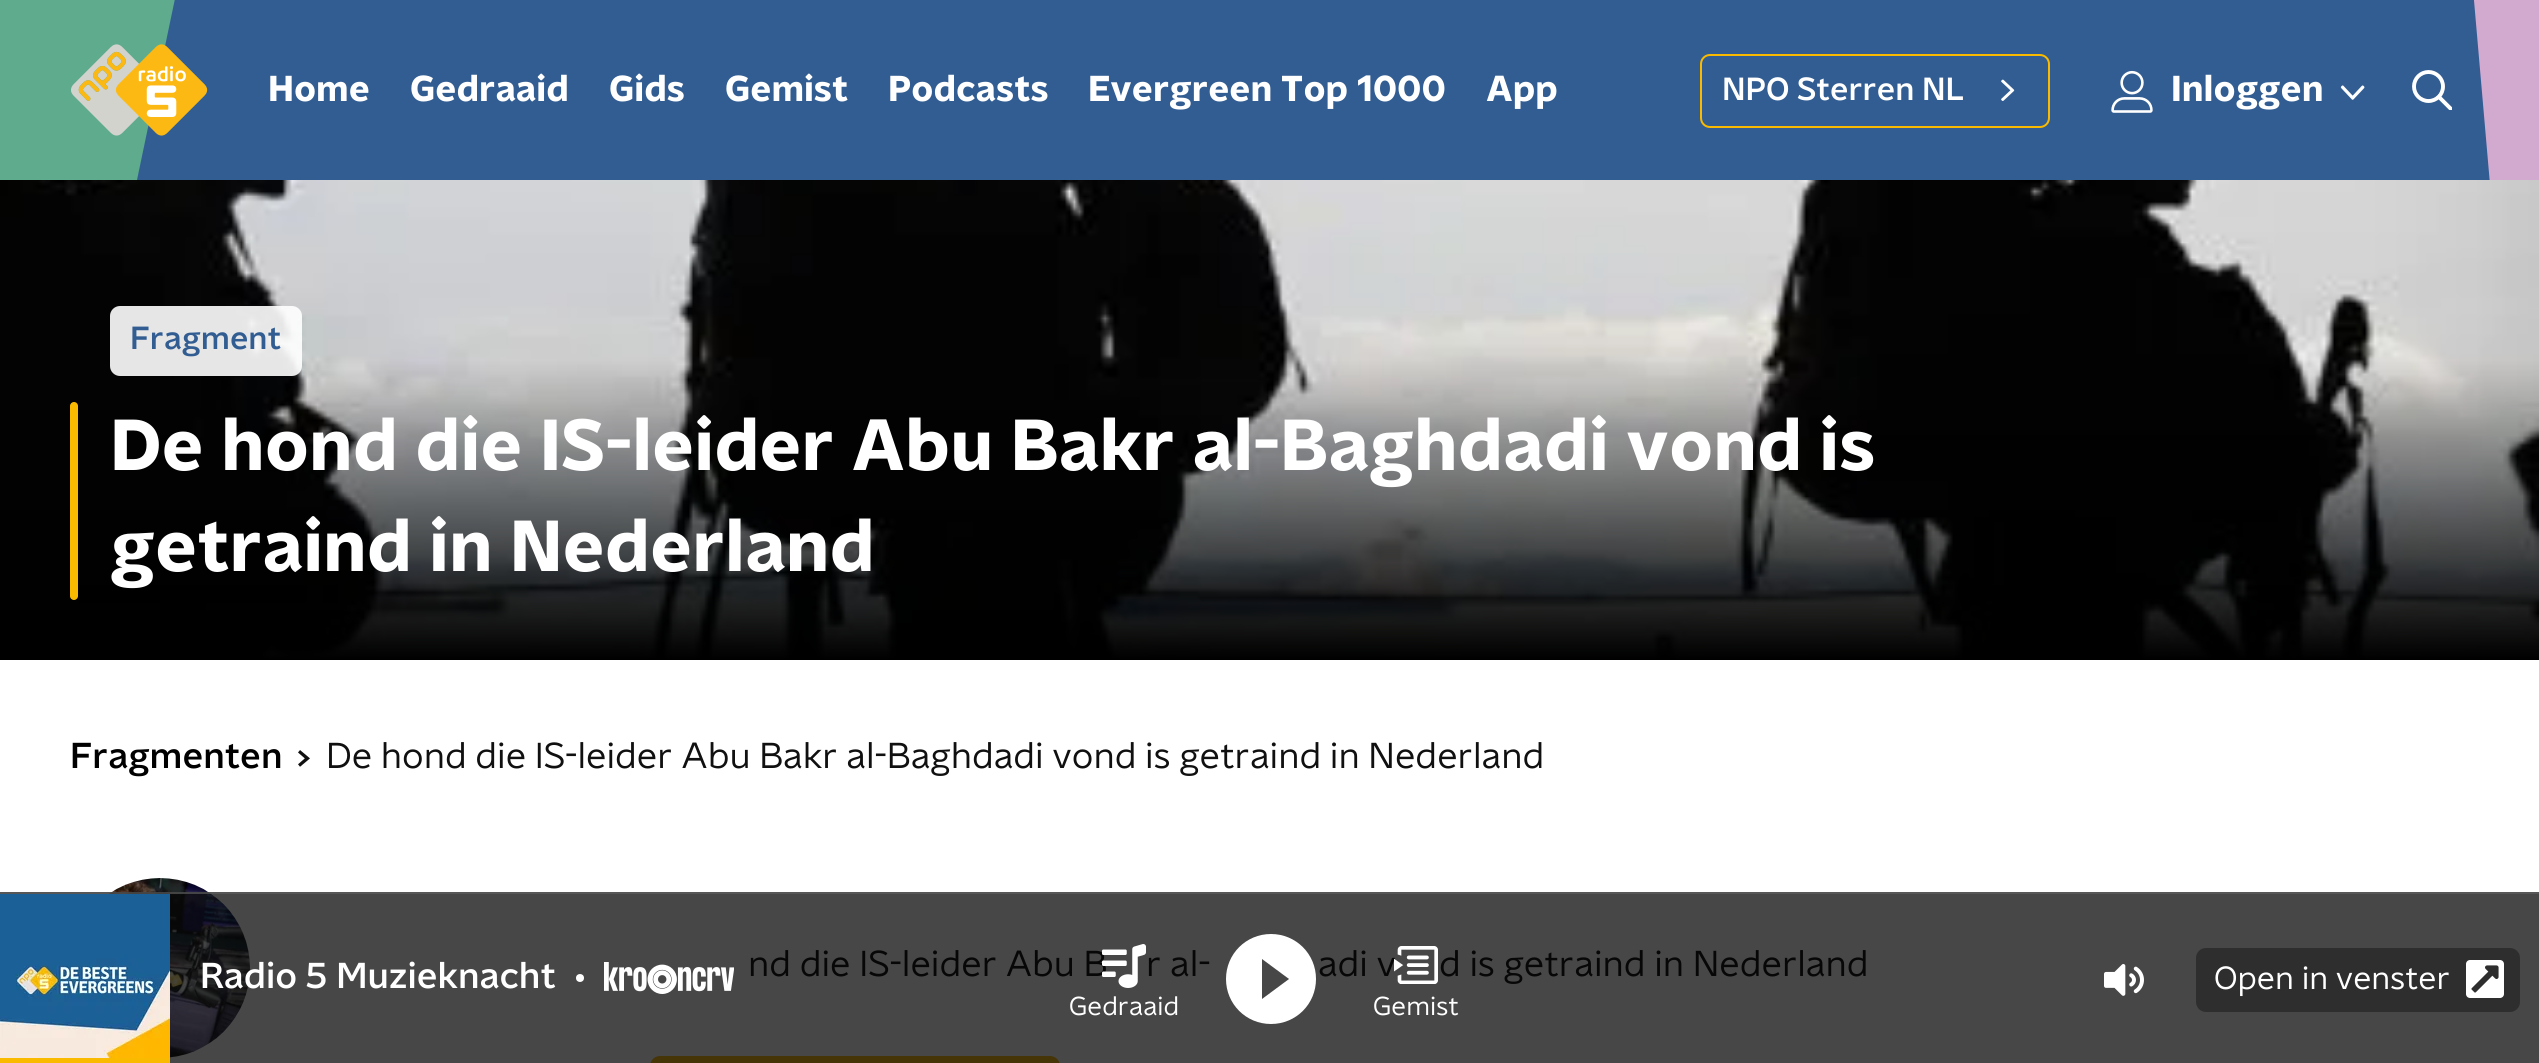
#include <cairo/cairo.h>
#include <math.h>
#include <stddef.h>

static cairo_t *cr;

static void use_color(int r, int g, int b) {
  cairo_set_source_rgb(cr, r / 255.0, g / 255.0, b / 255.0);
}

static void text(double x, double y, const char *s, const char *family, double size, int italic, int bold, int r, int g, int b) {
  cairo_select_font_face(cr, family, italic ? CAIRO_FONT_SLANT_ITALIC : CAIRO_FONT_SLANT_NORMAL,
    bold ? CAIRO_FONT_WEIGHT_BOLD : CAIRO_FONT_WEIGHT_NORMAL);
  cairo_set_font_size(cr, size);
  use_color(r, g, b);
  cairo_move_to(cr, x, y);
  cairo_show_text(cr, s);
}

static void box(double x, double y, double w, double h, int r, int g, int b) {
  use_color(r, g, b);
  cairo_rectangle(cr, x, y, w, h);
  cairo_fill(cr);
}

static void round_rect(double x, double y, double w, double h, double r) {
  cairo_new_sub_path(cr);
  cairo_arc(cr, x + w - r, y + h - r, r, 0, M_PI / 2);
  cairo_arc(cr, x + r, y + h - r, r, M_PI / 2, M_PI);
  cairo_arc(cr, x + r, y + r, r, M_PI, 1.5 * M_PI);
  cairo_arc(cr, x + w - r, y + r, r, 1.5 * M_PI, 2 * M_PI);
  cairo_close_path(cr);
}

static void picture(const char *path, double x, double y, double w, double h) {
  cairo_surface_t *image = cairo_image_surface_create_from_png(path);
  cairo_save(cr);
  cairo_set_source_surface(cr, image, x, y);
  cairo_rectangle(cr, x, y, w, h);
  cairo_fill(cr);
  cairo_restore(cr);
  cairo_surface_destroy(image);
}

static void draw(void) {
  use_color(255, 255, 255);
  cairo_paint(cr);
  box(0, 892, 2539, 171, 71, 71, 71);
  box(137, 0, 2353, 180, 50, 93, 146);
  cairo_save(cr);
  cairo_rectangle(cr, 0, 0, 204, 180);
  cairo_clip(cr);
  use_color(94, 171, 141);
  cairo_new_path(cr);
  cairo_move_to(cr, 203, -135);
  cairo_line_to(cr, -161, 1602);
  cairo_line_to(cr, -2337, 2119);
  cairo_line_to(cr, -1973, 382);
  cairo_close_path(cr);
  cairo_fill(cr);
  cairo_restore(cr);
  use_color(210, 170, 208);
  cairo_new_path(cr);
  cairo_move_to(cr, 2495, 242);
  cairo_line_to(cr, 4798, 621);
  cairo_line_to(cr, 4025, -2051);
  cairo_line_to(cr, 2258, -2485);
  cairo_close_path(cr);
  cairo_fill(cr);
  picture("img_01.png", 71, 44, 137, 92);
  round_rect(1701, 55, 348, 72, 9);
  use_color(250, 186, 0);
  cairo_stroke(cr);
  picture("img_02.png", 2001, 79, 14, 22);
  picture("img_03.png", 2111, 70, 42, 43);
  picture("img_04.png", 2340, 85, 25, 15);
  cairo_arc(cr, 2428.5, 86.5, 14.5, 0, 2 * M_PI);
  use_color(255, 255, 255);
  cairo_set_line_width(cr, 3.9);
  cairo_stroke(cr);
  cairo_save(cr);
  cairo_rectangle(cr, 2412, 70, 40, 40);
  cairo_clip(cr);
  cairo_new_path(cr);
  cairo_move_to(cr, 2439, 97);
  cairo_line_to(cr, 2451, 109);
  cairo_set_line_cap(cr, CAIRO_LINE_CAP_SQUARE);
  cairo_stroke(cr);
  cairo_restore(cr);
  picture("img_05.png", 0, 180, 2539, 480);
  cairo_set_source_rgba(cr, 1, 1, 1, 0.9);
  round_rect(110, 306, 192, 70, 10);
  cairo_fill(cr);
  use_color(250, 186, 0);
  round_rect(70, 402, 8, 198, 4);
  cairo_fill(cr);
  picture("img_06.png", 298, 750, 12, 17);
  picture("img_07.png", 109, 878, 141, 180);
  use_color(69, 53, 7);
  round_rect(650, 1056, 410, 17, 10);
  cairo_fill(cr);
  cairo_set_source_rgba(cr, 0.373, 0.373, 0.373, 0.65);
  cairo_rectangle(cr, 0, 892, 2539, 2);
  cairo_fill(cr);
  picture("img_08.png", 0, 894, 170, 164);
  box(0, 1058, 170, 5, 250, 186, 0);
  use_color(255, 255, 255);
  cairo_arc(cr, 580, 978, 4, 0, 2 * M_PI);
  cairo_fill(cr);
  picture("img_09.png", 604, 962, 130, 32);
  picture("img_10.png", 2104, 964, 40, 32);
  use_color(46, 46, 46);
  round_rect(2196, 948, 324, 64, 10);
  cairo_fill(cr);
  picture("img_11.png", 2466, 960, 38, 38);
  use_color(255, 255, 255);
  cairo_new_path(cr);
  cairo_move_to(cr, 1271, 934);
  cairo_curve_to(cr, 1246, 934, 1226, 954, 1226, 979);
  cairo_curve_to(cr, 1226, 1004, 1246, 1024, 1271, 1024);
  cairo_curve_to(cr, 1296, 1024, 1316, 1004, 1316, 979);
  cairo_curve_to(cr, 1316, 954, 1296, 934, 1271, 934);
  cairo_close_path(cr);
  cairo_move_to(cr, 1262, 999);
  cairo_line_to(cr, 1262, 959);
  cairo_line_to(cr, 1289, 979);
  cairo_close_path(cr);
  cairo_fill(cr);
  text(268, 101, "Home", "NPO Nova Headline", 36, 0, 1, 255, 255, 255);
  text(410, 101, "Gedraaid", "NPO Nova Headline", 36, 0, 1, 255, 255, 255);
  text(609, 101, "Gids", "NPO Nova Headline", 36, 0, 1, 255, 255, 255);
  text(725, 101, "Gemist", "NPO Nova Headline", 36, 0, 1, 255, 255, 255);
  text(888, 101, "Podcasts", "NPO Nova Headline", 36, 0, 1, 255, 255, 255);
  text(1088, 101, "Evergreen Top 1000", "NPO Nova Headline", 36, 0, 1, 255, 255, 255);
  text(1486, 101, "App", "NPO Nova Headline", 36, 0, 1, 255, 255, 255);
  text(1722, 100, "NPO Sterren NL", "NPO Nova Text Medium", 32, 0, 0, 255, 255, 255);
  text(2171, 101, "Inloggen", "NPO Nova Headline", 36, 0, 1, 255, 255, 255);
  text(130, 349, "Fragment", "NPO Nova Text Medium", 32, 0, 0, 50, 93, 146);
  text(110, 470, "De hond die IS-leider Abu Bakr al-Baghdadi vond is", "NPO Nova Headline", 72, 0, 1, 255, 255, 255);
  text(110, 571, "getraind in Nederland", "NPO Nova Headline", 72, 0, 1, 255, 255, 255);
  text(70, 768, "Fragmenten", "NPO Nova Text Medium", 36, 0, 0, 0, 0, 0);
  text(326, 768, "De hond die IS-leider Abu Bakr al-Baghdadi vond is getraind in Nederland", "NPO Nova Text", 36, 0, 0, 16, 16, 16);
  text(748, 976, "nd die IS-leider Abu B", "NPO Nova Text", 36, 0, 0, 7, 7, 7);
  text(1146, 976, "r al-", "NPO Nova Text", 36, 0, 0, 7, 7, 7);
  text(1318, 976, "adi v", "NPO Nova Text", 36, 0, 0, 7, 7, 7);
  text(1439, 976, "d is getraind in Nederland", "NPO Nova Text", 36, 0, 0, 7, 7, 7);
  text(200, 988, "Radio 5 Muzieknacht", "NPO Nova Text Medium", 36, 0, 0, 255, 255, 255);
  text(2214, 989, "Open in venster", "NPO Nova Text", 32, 0, 0, 255, 255, 255);
  picture("img_12.png", 1102, 944, 44, 44);
  text(1069, 1015, "Gedraaid", "NPO Nova Text", 26, 0, 0, 255, 255, 255);
  picture("img_13.png", 1394, 946, 44, 38);
  text(1373, 1015, "Gemist", "NPO Nova Text", 26, 0, 0, 255, 255, 255);
}

int main(void) {
  cairo_surface_t *surface = cairo_image_surface_create(CAIRO_FORMAT_RGB24, 2539, 1063);
  cr = cairo_create(surface);
  cairo_font_options_t *options = cairo_font_options_create();
  cairo_font_options_set_hint_metrics(options, CAIRO_HINT_METRICS_OFF);
  cairo_font_options_set_hint_style(options, CAIRO_HINT_STYLE_NONE);
  cairo_set_font_options(cr, options);
  cairo_set_miter_limit(cr, 4);
  draw();
  cairo_surface_write_to_png(surface, "out.png");
  cairo_font_options_destroy(options);
  cairo_destroy(cr);
  cairo_surface_destroy(surface);
  return 0;
}
